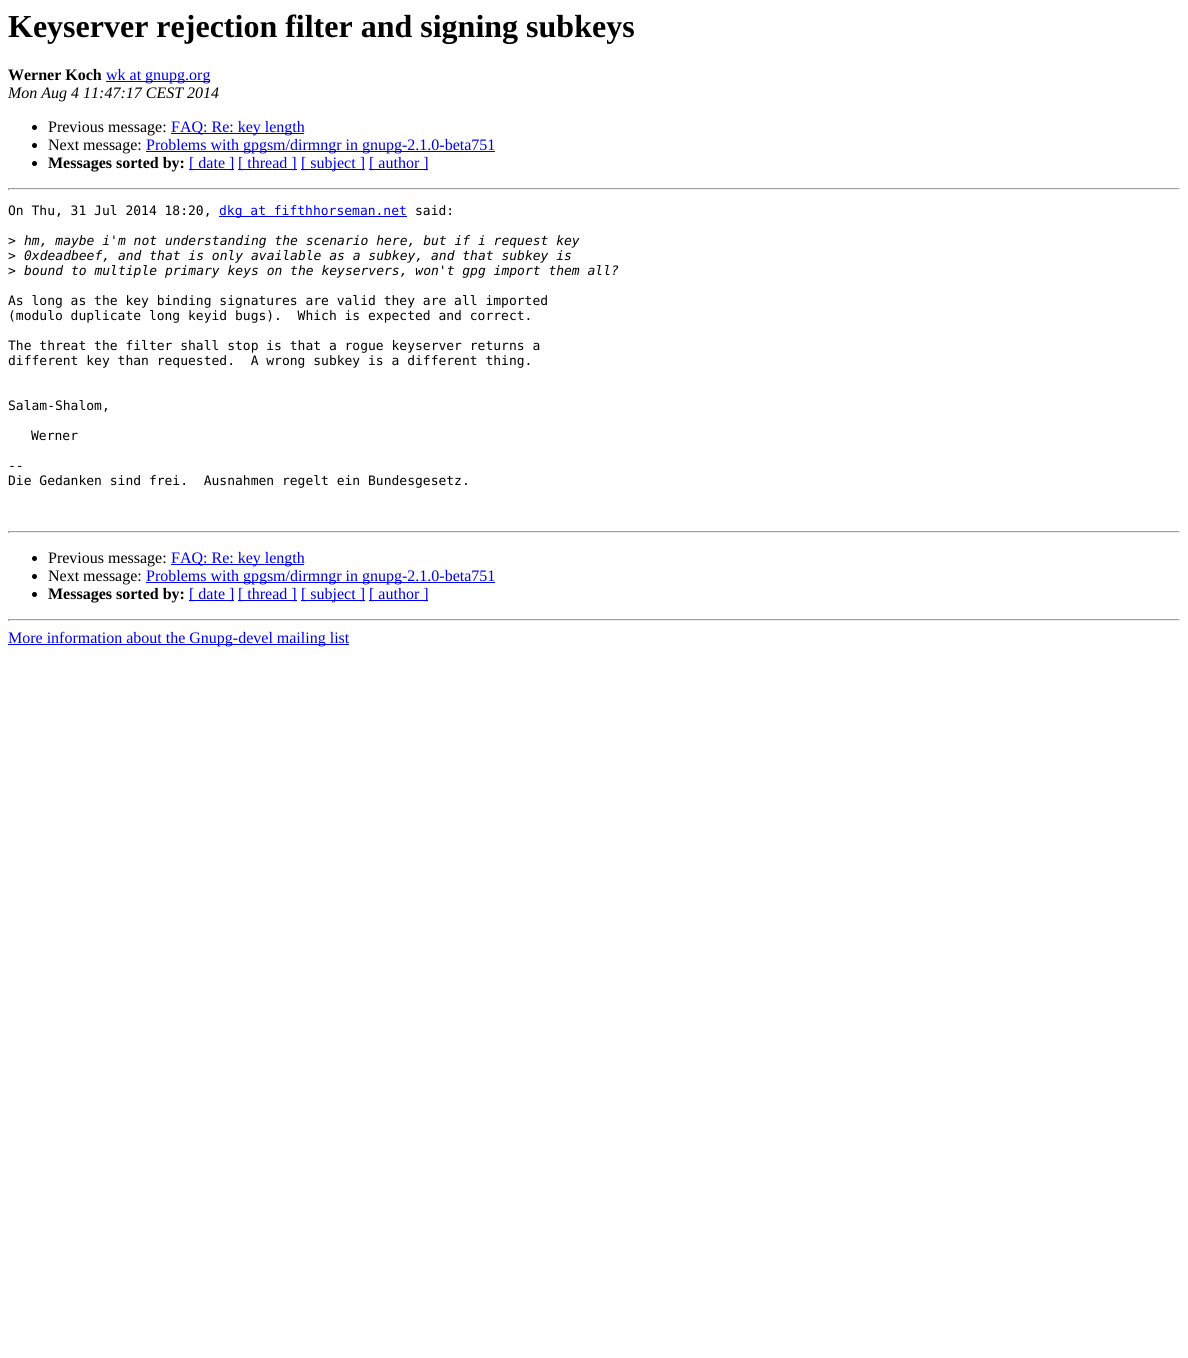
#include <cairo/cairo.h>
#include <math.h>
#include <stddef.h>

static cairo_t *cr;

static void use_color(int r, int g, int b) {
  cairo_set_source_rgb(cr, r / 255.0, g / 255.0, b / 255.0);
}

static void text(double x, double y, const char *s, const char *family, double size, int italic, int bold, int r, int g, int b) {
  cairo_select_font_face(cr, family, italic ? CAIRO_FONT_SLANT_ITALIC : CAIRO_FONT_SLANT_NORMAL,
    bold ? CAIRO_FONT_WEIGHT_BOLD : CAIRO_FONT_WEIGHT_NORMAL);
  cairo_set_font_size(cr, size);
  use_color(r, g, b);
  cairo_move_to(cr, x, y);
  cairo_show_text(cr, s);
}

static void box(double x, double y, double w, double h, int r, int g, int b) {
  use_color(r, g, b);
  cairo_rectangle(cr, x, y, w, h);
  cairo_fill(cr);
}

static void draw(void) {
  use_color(255, 255, 255);
  cairo_paint(cr);
  box(106, 81, 104, 1, 0, 0, 238);
  use_color(0, 0, 0);
  cairo_arc(cr, 34.5, 127.5, 2.5, 0, 2 * M_PI);
  cairo_fill(cr);
  box(171, 133, 133, 1, 0, 0, 238);
  use_color(0, 0, 0);
  cairo_arc(cr, 34.5, 145.5, 2.5, 0, 2 * M_PI);
  cairo_fill(cr);
  box(146, 151, 349, 1, 0, 0, 238);
  use_color(0, 0, 0);
  cairo_arc(cr, 34.5, 163.5, 2.5, 0, 2 * M_PI);
  cairo_fill(cr);
  box(189, 169, 45, 1, 0, 0, 238);
  box(238, 169, 59, 1, 0, 0, 238);
  box(301, 169, 64, 1, 0, 0, 238);
  box(369, 169, 59, 1, 0, 0, 238);
  box(8, 188, 1172, 1, 159, 159, 159);
  box(1179, 188, 1, 2, 238, 238, 238);
  box(8, 189, 1172, 1, 238, 238, 238);
  box(8, 188, 1, 2, 159, 159, 159);
  box(219, 216, 188, 1, 0, 0, 238);
  box(8, 531, 1172, 1, 159, 159, 159);
  box(1179, 531, 1, 2, 238, 238, 238);
  box(8, 532, 1172, 1, 238, 238, 238);
  box(8, 531, 1, 2, 159, 159, 159);
  use_color(0, 0, 0);
  cairo_arc(cr, 34.5, 558.5, 2.5, 0, 2 * M_PI);
  cairo_fill(cr);
  box(171, 564, 133, 1, 0, 0, 238);
  use_color(0, 0, 0);
  cairo_arc(cr, 34.5, 576.5, 2.5, 0, 2 * M_PI);
  cairo_fill(cr);
  box(146, 582, 349, 1, 0, 0, 238);
  use_color(0, 0, 0);
  cairo_arc(cr, 34.5, 594.5, 2.5, 0, 2 * M_PI);
  cairo_fill(cr);
  box(189, 600, 45, 1, 0, 0, 238);
  box(238, 600, 59, 1, 0, 0, 238);
  box(301, 600, 64, 1, 0, 0, 238);
  box(369, 600, 59, 1, 0, 0, 238);
  box(8, 619, 1172, 1, 159, 159, 159);
  box(1179, 619, 1, 2, 238, 238, 238);
  box(8, 620, 1172, 1, 238, 238, 238);
  box(8, 619, 1, 2, 159, 159, 159);
  box(8, 644, 341, 1, 0, 0, 238);
  text(8, 37, "Keyserver rejection filter and signing subkeys", "Liberation Serif", 32, 0, 1, 0, 0, 0);
  text(8, 80, "Werner Koch", "Liberation Serif", 16, 0, 1, 0, 0, 0);
  text(106, 80, "wk at gnupg.org", "Liberation Serif", 16, 0, 0, 0, 0, 238);
  text(8, 98, "Mon Aug 4 11:47:17 CEST 2014", "Liberation Serif", 16, 1, 0, 0, 0, 0);
  text(48, 132, "Previous message:", "Liberation Serif", 16, 0, 0, 0, 0, 0);
  text(171, 132, "FAQ: Re: key length", "Liberation Serif", 16, 0, 0, 0, 0, 238);
  text(48, 150, "Next message:", "Liberation Serif", 16, 0, 0, 0, 0, 0);
  text(146, 150, "Problems with gpgsm/dirmngr in gnupg-2.1.0-beta751", "Liberation Serif", 16, 0, 0, 0, 0, 238);
  text(48, 168, "Messages sorted by:", "Liberation Serif", 16, 0, 1, 0, 0, 0);
  text(189, 168, "[ date ]", "Liberation Serif", 16, 0, 0, 0, 0, 238);
  text(238, 168, "[ thread ]", "Liberation Serif", 16, 0, 0, 0, 0, 238);
  text(301, 168, "[ subject ]", "Liberation Serif", 16, 0, 0, 0, 0, 238);
  text(369, 168, "[ author ]", "Liberation Serif", 16, 0, 0, 0, 0, 238);
  text(8, 215, "On Thu, 31 Jul 2014 18:20,", "DejaVu Sans Mono", 13, 0, 0, 0, 0, 0);
  text(219, 215, "dkg at fifthhorseman.net", "DejaVu Sans Mono", 13, 0, 0, 0, 0, 238);
  text(415, 215, "said:", "DejaVu Sans Mono", 13, 0, 0, 0, 0, 0);
  text(8, 245, ">", "DejaVu Sans Mono", 13, 0, 0, 0, 0, 0);
  text(24, 245, "hm, maybe i'm not understanding the scenario here, but if i request key", "DejaVu Sans Mono", 13, 1, 0, 0, 0, 0);
  text(8, 260, ">", "DejaVu Sans Mono", 13, 0, 0, 0, 0, 0);
  text(24, 260, "0xdeadbeef, and that is only available as a subkey, and that subkey is", "DejaVu Sans Mono", 13, 1, 0, 0, 0, 0);
  text(8, 275, ">", "DejaVu Sans Mono", 13, 0, 0, 0, 0, 0);
  text(24, 275, "bound to multiple primary keys on the keyservers, won't gpg import them all?", "DejaVu Sans Mono", 13, 1, 0, 0, 0, 0);
  text(8, 305, "As long as the key binding signatures are valid they are all imported", "DejaVu Sans Mono", 13, 0, 0, 0, 0, 0);
  text(8, 320, "(modulo duplicate long keyid bugs).  Which is expected and correct.", "DejaVu Sans Mono", 13, 0, 0, 0, 0, 0);
  text(8, 350, "The threat the filter shall stop is that a rogue keyserver returns a", "DejaVu Sans Mono", 13, 0, 0, 0, 0, 0);
  text(8, 365, "different key than requested.  A wrong subkey is a different thing.", "DejaVu Sans Mono", 13, 0, 0, 0, 0, 0);
  text(8, 410, "Salam-Shalom,", "DejaVu Sans Mono", 13, 0, 0, 0, 0, 0);
  text(31, 440, "Werner", "DejaVu Sans Mono", 13, 0, 0, 0, 0, 0);
  text(8, 470, "--", "DejaVu Sans Mono", 13, 0, 0, 0, 0, 0);
  text(8, 485, "Die Gedanken sind frei.  Ausnahmen regelt ein Bundesgesetz.", "DejaVu Sans Mono", 13, 0, 0, 0, 0, 0);
  text(48, 563, "Previous message:", "Liberation Serif", 16, 0, 0, 0, 0, 0);
  text(171, 563, "FAQ: Re: key length", "Liberation Serif", 16, 0, 0, 0, 0, 238);
  text(48, 581, "Next message:", "Liberation Serif", 16, 0, 0, 0, 0, 0);
  text(146, 581, "Problems with gpgsm/dirmngr in gnupg-2.1.0-beta751", "Liberation Serif", 16, 0, 0, 0, 0, 238);
  text(48, 599, "Messages sorted by:", "Liberation Serif", 16, 0, 1, 0, 0, 0);
  text(189, 599, "[ date ]", "Liberation Serif", 16, 0, 0, 0, 0, 238);
  text(238, 599, "[ thread ]", "Liberation Serif", 16, 0, 0, 0, 0, 238);
  text(301, 599, "[ subject ]", "Liberation Serif", 16, 0, 0, 0, 0, 238);
  text(369, 599, "[ author ]", "Liberation Serif", 16, 0, 0, 0, 0, 238);
  text(8, 643, "More information about the Gnupg-devel mailing list", "Liberation Serif", 16, 0, 0, 0, 0, 238);
}

int main(void) {
  cairo_surface_t *surface = cairo_image_surface_create(CAIRO_FORMAT_RGB24, 1188, 1358);
  cr = cairo_create(surface);
  cairo_font_options_t *options = cairo_font_options_create();
  cairo_font_options_set_hint_metrics(options, CAIRO_HINT_METRICS_OFF);
  cairo_font_options_set_hint_style(options, CAIRO_HINT_STYLE_NONE);
  cairo_set_font_options(cr, options);
  cairo_set_miter_limit(cr, 4);
  draw();
  cairo_surface_write_to_png(surface, "out.png");
  cairo_font_options_destroy(options);
  cairo_destroy(cr);
  cairo_surface_destroy(surface);
  return 0;
}
